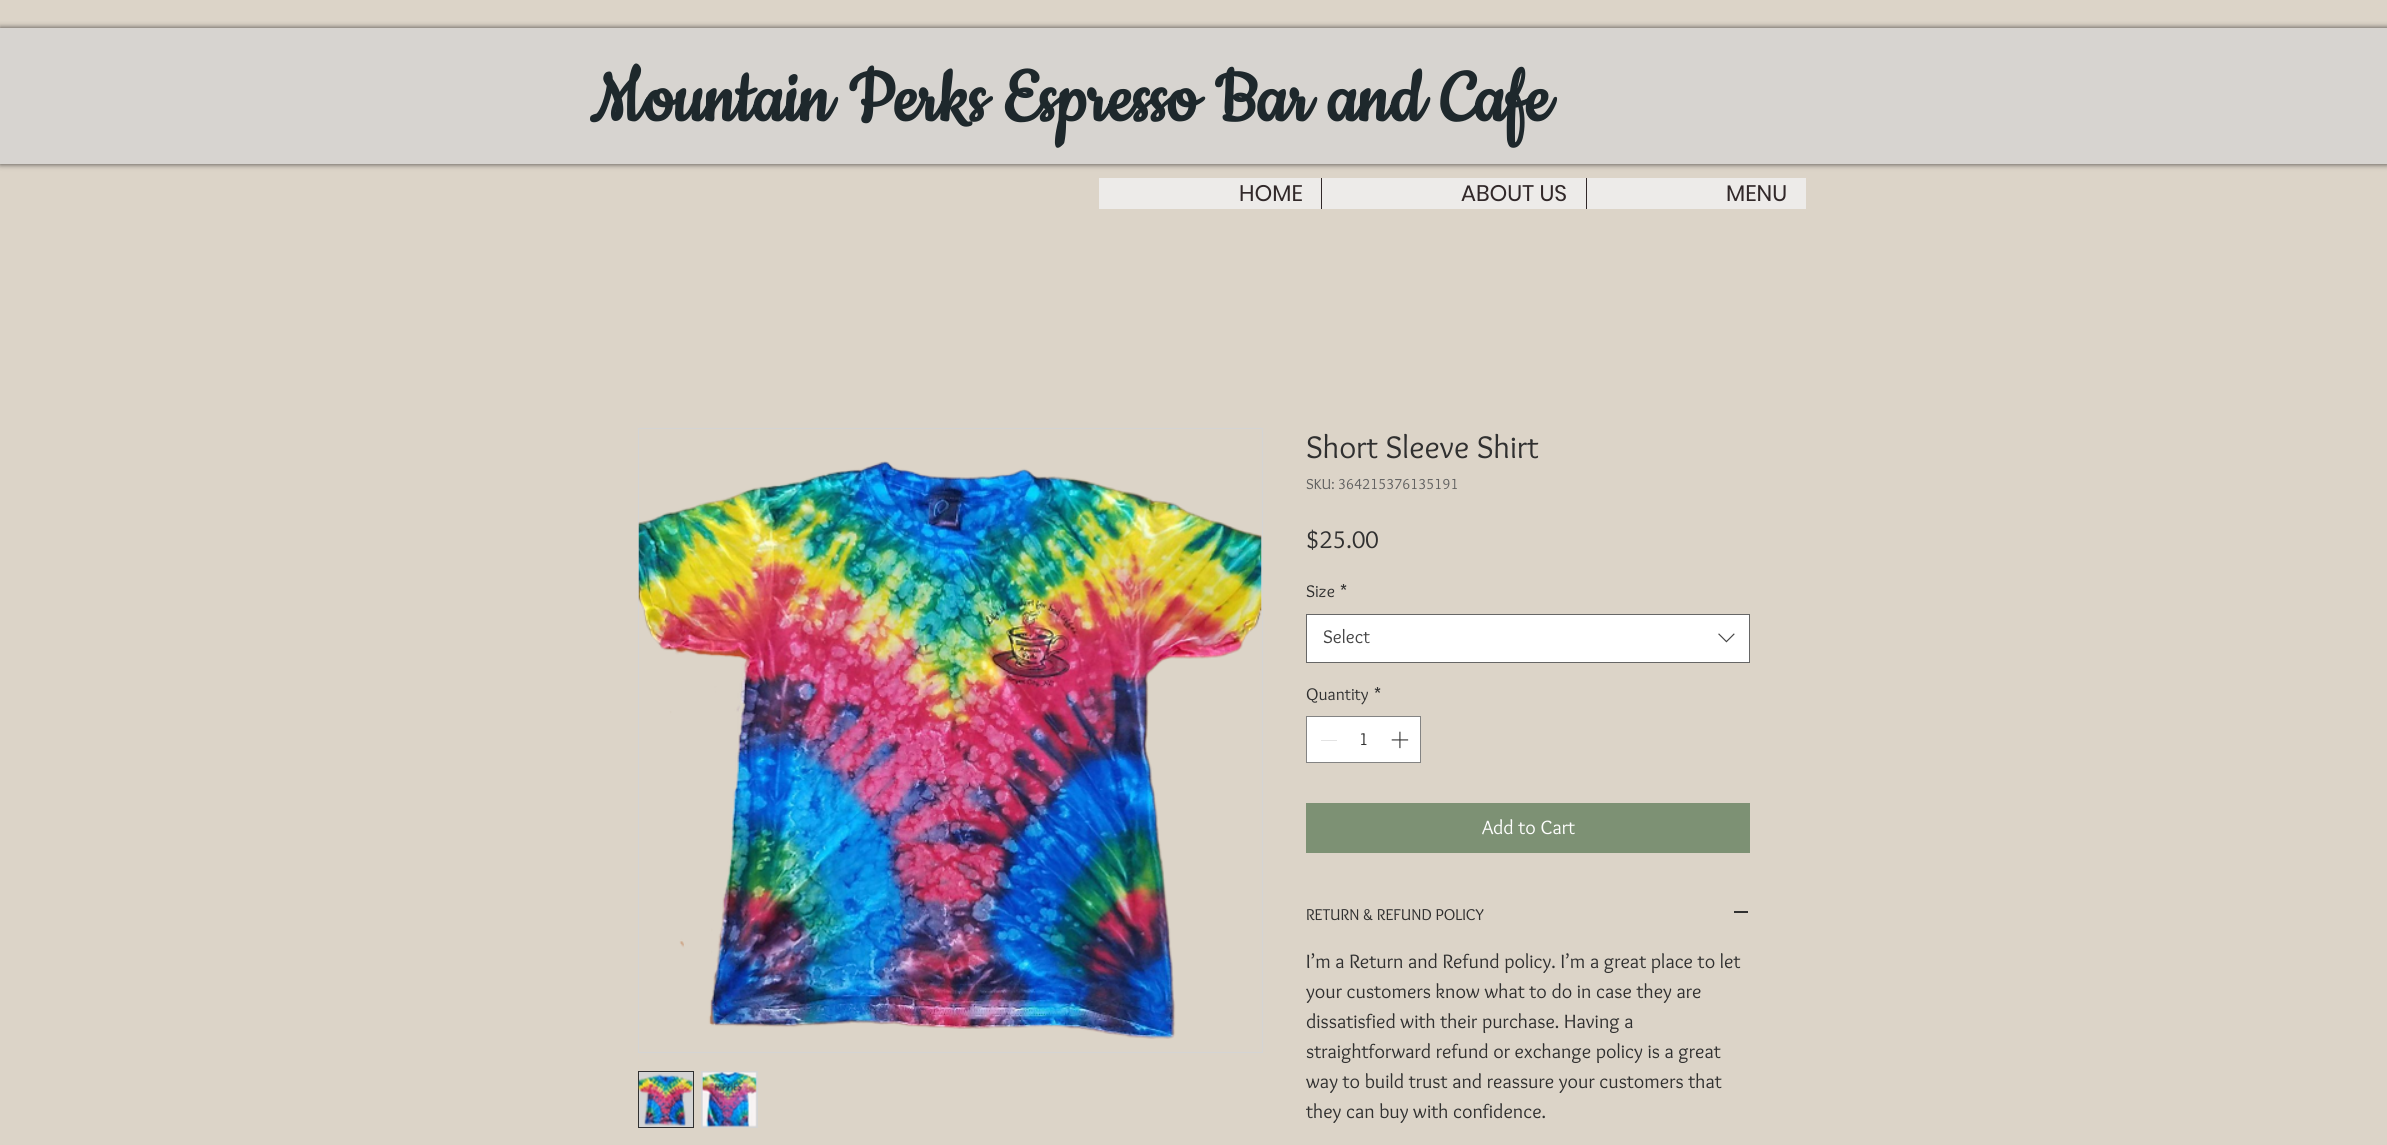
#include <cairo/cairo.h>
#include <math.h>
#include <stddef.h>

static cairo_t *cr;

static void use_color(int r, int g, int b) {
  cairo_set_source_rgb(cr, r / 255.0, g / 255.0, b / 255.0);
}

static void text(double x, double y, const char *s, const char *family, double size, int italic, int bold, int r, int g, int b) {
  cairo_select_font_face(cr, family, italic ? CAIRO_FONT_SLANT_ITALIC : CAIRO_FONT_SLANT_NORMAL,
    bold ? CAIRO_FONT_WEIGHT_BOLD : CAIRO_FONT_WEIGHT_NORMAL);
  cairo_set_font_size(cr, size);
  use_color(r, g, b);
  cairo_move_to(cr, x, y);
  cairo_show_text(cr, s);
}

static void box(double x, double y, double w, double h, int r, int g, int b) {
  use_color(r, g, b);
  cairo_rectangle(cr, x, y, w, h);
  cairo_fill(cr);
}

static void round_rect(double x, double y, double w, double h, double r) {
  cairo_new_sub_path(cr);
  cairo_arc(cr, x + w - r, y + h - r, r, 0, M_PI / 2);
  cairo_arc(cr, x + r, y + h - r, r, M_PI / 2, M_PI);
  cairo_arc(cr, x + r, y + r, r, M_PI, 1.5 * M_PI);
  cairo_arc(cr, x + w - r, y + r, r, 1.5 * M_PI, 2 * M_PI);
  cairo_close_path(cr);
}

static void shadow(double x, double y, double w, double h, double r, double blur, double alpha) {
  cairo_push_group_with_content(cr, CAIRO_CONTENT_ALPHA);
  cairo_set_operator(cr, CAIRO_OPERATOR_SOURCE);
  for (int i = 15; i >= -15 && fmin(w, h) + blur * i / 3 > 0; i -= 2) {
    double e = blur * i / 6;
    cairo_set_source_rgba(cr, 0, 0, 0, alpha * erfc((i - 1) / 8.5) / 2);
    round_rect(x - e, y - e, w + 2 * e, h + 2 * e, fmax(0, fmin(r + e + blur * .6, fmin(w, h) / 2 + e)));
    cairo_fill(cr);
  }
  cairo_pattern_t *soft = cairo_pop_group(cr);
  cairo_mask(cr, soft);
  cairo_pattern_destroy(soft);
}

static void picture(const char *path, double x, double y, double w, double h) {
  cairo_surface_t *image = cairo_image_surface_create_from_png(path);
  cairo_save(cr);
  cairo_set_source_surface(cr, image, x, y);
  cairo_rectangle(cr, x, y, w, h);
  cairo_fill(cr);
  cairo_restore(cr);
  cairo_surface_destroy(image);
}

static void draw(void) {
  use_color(220, 212, 200);
  cairo_paint(cr);
  cairo_save(cr);
  cairo_set_fill_rule(cr, CAIRO_FILL_RULE_EVEN_ODD);
  cairo_new_path(cr);
  cairo_move_to(cr, 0, 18);
  cairo_line_to(cr, 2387, 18);
  cairo_line_to(cr, 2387, 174);
  cairo_line_to(cr, 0, 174);
  cairo_close_path(cr);
  cairo_move_to(cr, 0, 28);
  cairo_line_to(cr, 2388, 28);
  cairo_line_to(cr, 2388, 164);
  cairo_line_to(cr, 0, 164);
  cairo_close_path(cr);
  cairo_clip(cr);
  use_color(0, 0, 0);
  shadow(0, 28, 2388, 136, 0, 3, 0.7);
  cairo_restore(cr);
  cairo_set_source_rgba(cr, 0.831, 0.831, 0.831, 0.65);
  cairo_rectangle(cr, 0, 28, 2387, 136);
  cairo_fill(cr);
  box(1099, 178, 707, 31, 237, 235, 233);
  box(1321, 178, 1, 31, 49, 40, 41);
  box(1586, 178, 1, 31, 49, 40, 41);
  cairo_rectangle(cr, 638.5, 428.5, 624, 624);
  use_color(212, 212, 212);
  cairo_set_line_width(cr, 1);
  cairo_stroke(cr);
  picture("img_01.png", 638, 461, 624, 578);
  cairo_rectangle(cr, 638.5, 1071.5, 55, 56);
  cairo_fill_preserve(cr);
  use_color(48, 48, 48);
  cairo_stroke(cr);
  picture("img_02.png", 638, 1074, 55, 52);
  box(701, 1071, 57, 57, 212, 212, 212);
  picture("img_03.png", 702, 1072, 55, 55);
  use_color(255, 255, 255);
  cairo_rectangle(cr, 1306.5, 614.5, 443, 48);
  cairo_fill_preserve(cr);
  use_color(102, 102, 102);
  cairo_stroke(cr);
  picture("img_04.png", 1718, 633, 17, 10);
  use_color(255, 255, 255);
  cairo_rectangle(cr, 1306.5, 716.5, 114, 46);
  cairo_fill_preserve(cr);
  use_color(131, 131, 131);
  cairo_stroke(cr);
  box(1321, 740, 16, 1, 227, 227, 227);
  picture("img_05.png", 1391, 731, 18, 18);
  box(1306, 803, 444, 50, 125, 145, 116);
  box(1734, 911, 14, 2, 48, 48, 48);
  text(590, 121, "Mountain Perks Espresso Bar and Cafe", "Cookie", 83.75, 0, 1, 30, 40, 44);
  text(1239, 201, "HOME", "Poppins", 22.5, 0, 0, 49, 40, 41);
  text(1461, 201, "ABOUT US", "Poppins", 22.5, 0, 0, 49, 40, 41);
  text(1726, 201, "MENU", "Poppins", 22.5, 0, 0, 49, 40, 41);
  text(1306, 458, "Short Sleeve Shirt", "Overlock", 32.5, 0, 0, 48, 48, 48);
  text(1306, 489, "SKU: 364215376135191", "Overlock", 15, 0, 0, 96, 96, 96);
  text(1306, 548, "$25.00", "Overlock", 25, 0, 0, 48, 48, 48);
  text(1306, 597, "Size", "Overlock", 17.5, 0, 0, 48, 48, 48);
  text(1340, 597, "*", "Overlock", 17.5, 0, 0, 48, 48, 48);
  text(1323, 643, "Select", "Overlock", 19, 0, 0, 68, 68, 68);
  text(1306, 700, "Quantity", "Overlock", 17.5, 0, 0, 48, 48, 48);
  text(1374, 700, "*", "Overlock", 17.5, 0, 0, 48, 48, 48);
  text(1359, 745, "1", "Overlock", 17.5, 0, 0, 48, 48, 48);
  text(1482, 834, "Add to Cart", "Overlock", 20, 0, 0, 255, 255, 255);
  text(1306, 920, "RETURN & REFUND POLICY", "Overlock", 16.25, 0, 0, 48, 48, 48);
  text(1306, 968, "I’m a Return and Refund policy. I’m a great place to let", "Overlock", 20, 0, 0, 48, 48, 48);
  text(1306, 998, "your customers know what to do in case they are", "Overlock", 20, 0, 0, 48, 48, 48);
  text(1306, 1028, "dissatisfied with their purchase. Having a", "Overlock", 20, 0, 0, 48, 48, 48);
  text(1306, 1058, "straightforward refund or exchange policy is a great", "Overlock", 20, 0, 0, 48, 48, 48);
  text(1306, 1088, "way to build trust and reassure your customers that", "Overlock", 20, 0, 0, 48, 48, 48);
  text(1306, 1118, "they can buy with confidence.", "Overlock", 20, 0, 0, 48, 48, 48);
}

int main(void) {
  cairo_surface_t *surface = cairo_image_surface_create(CAIRO_FORMAT_RGB24, 2387, 1145);
  cr = cairo_create(surface);
  cairo_font_options_t *options = cairo_font_options_create();
  cairo_font_options_set_hint_metrics(options, CAIRO_HINT_METRICS_OFF);
  cairo_font_options_set_hint_style(options, CAIRO_HINT_STYLE_NONE);
  cairo_set_font_options(cr, options);
  cairo_set_miter_limit(cr, 4);
  draw();
  cairo_surface_write_to_png(surface, "out.png");
  cairo_font_options_destroy(options);
  cairo_destroy(cr);
  cairo_surface_destroy(surface);
  return 0;
}
